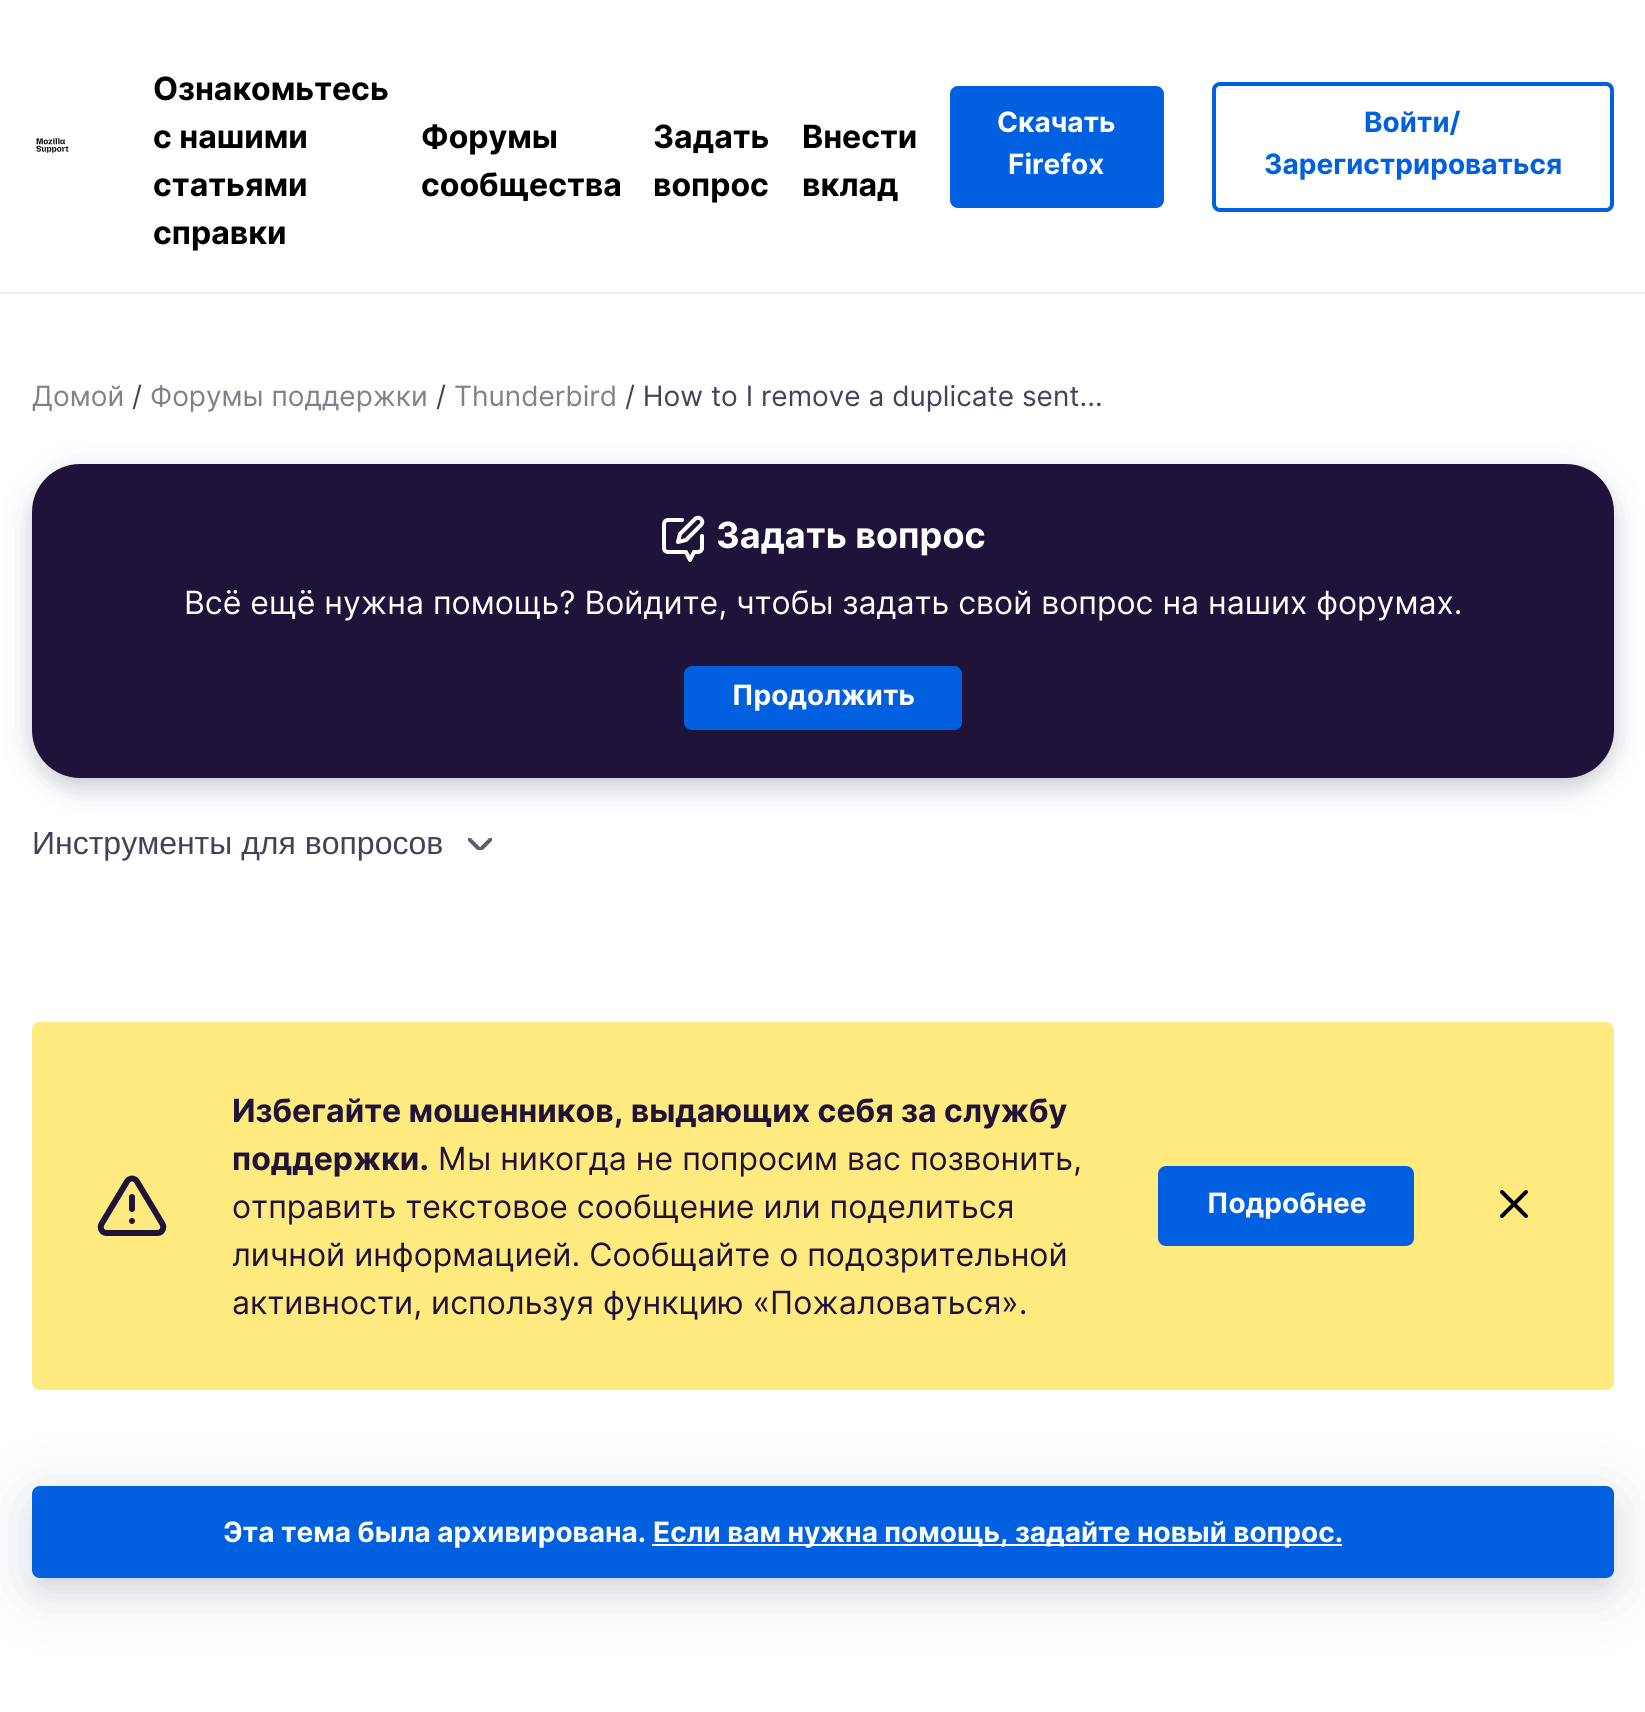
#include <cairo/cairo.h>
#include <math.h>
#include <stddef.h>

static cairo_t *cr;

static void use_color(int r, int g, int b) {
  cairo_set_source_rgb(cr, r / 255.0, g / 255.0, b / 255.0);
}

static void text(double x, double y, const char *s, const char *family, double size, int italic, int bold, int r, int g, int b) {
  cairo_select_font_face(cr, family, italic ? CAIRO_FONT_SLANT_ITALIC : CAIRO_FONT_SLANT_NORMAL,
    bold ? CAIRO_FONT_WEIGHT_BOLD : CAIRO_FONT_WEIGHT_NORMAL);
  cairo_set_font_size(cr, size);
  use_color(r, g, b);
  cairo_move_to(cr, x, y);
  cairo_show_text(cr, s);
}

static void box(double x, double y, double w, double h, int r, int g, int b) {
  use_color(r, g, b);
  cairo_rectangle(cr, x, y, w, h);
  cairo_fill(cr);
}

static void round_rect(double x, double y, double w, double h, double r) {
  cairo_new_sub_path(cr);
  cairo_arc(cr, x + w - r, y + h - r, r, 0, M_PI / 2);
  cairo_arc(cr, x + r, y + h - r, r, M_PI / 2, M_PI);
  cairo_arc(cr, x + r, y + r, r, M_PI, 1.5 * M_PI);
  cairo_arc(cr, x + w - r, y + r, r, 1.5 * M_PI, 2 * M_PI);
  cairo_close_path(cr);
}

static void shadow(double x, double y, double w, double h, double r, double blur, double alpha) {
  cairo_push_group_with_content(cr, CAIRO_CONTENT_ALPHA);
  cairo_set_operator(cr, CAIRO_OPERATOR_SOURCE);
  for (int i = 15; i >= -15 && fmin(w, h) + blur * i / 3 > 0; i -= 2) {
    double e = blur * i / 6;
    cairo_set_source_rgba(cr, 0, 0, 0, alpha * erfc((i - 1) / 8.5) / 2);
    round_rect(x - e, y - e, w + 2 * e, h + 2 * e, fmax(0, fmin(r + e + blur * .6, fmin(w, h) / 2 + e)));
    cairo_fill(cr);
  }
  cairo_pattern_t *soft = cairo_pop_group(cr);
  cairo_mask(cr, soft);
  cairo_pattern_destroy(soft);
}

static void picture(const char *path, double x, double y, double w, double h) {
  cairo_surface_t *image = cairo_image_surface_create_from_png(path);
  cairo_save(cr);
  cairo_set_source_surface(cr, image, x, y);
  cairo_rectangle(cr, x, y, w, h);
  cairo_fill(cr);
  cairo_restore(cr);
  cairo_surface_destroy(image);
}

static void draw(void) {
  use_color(255, 255, 255);
  cairo_paint(cr);
  box(0, 292, 1645, 2, 237, 237, 240);
  picture("img_01.png", 36, 138, 33, 15);
  use_color(0, 96, 223);
  round_rect(950, 86, 214, 122, 8);
  cairo_fill(cr);
  round_rect(1214, 84, 398, 126, 6);
  cairo_set_line_width(cr, 4);
  cairo_stroke(cr);
  use_color(34, 0, 51);
  shadow(30, 478, 1586, 318, 50, 12, 0.04);
  use_color(7, 48, 114);
  shadow(28, 466, 1590, 322, 52, 16, 0.12);
  use_color(14, 13, 26);
  shadow(38, 480, 1570, 302, 42, 10, 0.12);
  use_color(32, 19, 58);
  round_rect(32, 464, 1582, 314, 48);
  cairo_fill(cr);
  picture("img_02.png", 662, 515, 43, 47);
  use_color(0, 96, 223);
  round_rect(684, 666, 278, 64, 8);
  cairo_fill(cr);
  cairo_save(cr);
  cairo_rectangle(cr, 468, 838, 24, 12);
  cairo_clip(cr);
  cairo_new_path(cr);
  cairo_move_to(cr, 469.5, 839.5);
  cairo_line_to(cr, 480, 850);
  cairo_line_to(cr, 490.5, 839.5);
  use_color(94, 94, 114);
  cairo_set_line_cap(cr, CAIRO_LINE_CAP_ROUND);
  cairo_set_line_join(cr, CAIRO_LINE_JOIN_ROUND);
  cairo_stroke(cr);
  cairo_restore(cr);
  use_color(255, 234, 128);
  round_rect(32, 1022, 1582, 368, 8);
  cairo_fill(cr);
  cairo_new_path(cr);
  cairo_move_to(cr, 127, 1181.5);
  cairo_line_to(cr, 101.5, 1224);
  cairo_curve_to(cr, 100.5, 1226, 100.5, 1228, 101.5, 1230);
  cairo_curve_to(cr, 102.5, 1232, 104.5, 1233, 106.5, 1233);
  cairo_line_to(cr, 157.5, 1233);
  cairo_curve_to(cr, 159.5, 1233, 161.5, 1232, 162.5, 1230);
  cairo_curve_to(cr, 163.5, 1228, 163.5, 1226, 162.5, 1224);
  cairo_line_to(cr, 137, 1181.5);
  cairo_curve_to(cr, 136, 1180, 134, 1178.5, 132, 1178.5);
  cairo_curve_to(cr, 130, 1178.5, 128, 1180, 127, 1181.5);
  cairo_close_path(cr);
  use_color(32, 19, 58);
  cairo_set_line_width(cr, 6);
  cairo_set_line_cap(cr, CAIRO_LINE_CAP_ROUND);
  cairo_set_line_join(cr, CAIRO_LINE_JOIN_ROUND);
  cairo_stroke(cr);
  cairo_new_path(cr);
  cairo_move_to(cr, 132, 1197);
  cairo_line_to(cr, 132, 1209);
  cairo_move_to(cr, 132, 1221);
  cairo_line_to(cr, 132, 1221);
  cairo_stroke(cr);
  use_color(0, 96, 223);
  round_rect(1158, 1166, 256, 80, 8);
  cairo_fill(cr);
  cairo_new_path(cr);
  cairo_move_to(cr, 1502, 1192);
  cairo_line_to(cr, 1526, 1216);
  cairo_move_to(cr, 1502, 1216);
  cairo_line_to(cr, 1526, 1192);
  use_color(0, 0, 0);
  cairo_set_line_width(cr, 4);
  cairo_set_line_join(cr, CAIRO_LINE_JOIN_MITER);
  cairo_stroke(cr);
  use_color(29, 17, 51);
  shadow(42, 1512, 1562, 72, 0, 12, 0.12);
  use_color(9, 32, 77);
  shadow(24, 1490, 1598, 108, 16, 32, 0.12);
  use_color(0, 96, 223);
  round_rect(32, 1486, 1582, 92, 8);
  cairo_fill(cr);
  box(652, 1544, 690, 2, 255, 255, 255);
  text(153, 100, "Ознакомьтесь", "Inter", 32, 0, 1, 0, 0, 0);
  text(153, 148, "с нашими", "Inter", 32, 0, 1, 0, 0, 0);
  text(153, 196, "статьями", "Inter", 32, 0, 1, 0, 0, 0);
  text(153, 244, "справки", "Inter", 32, 0, 1, 0, 0, 0);
  text(421, 148, "Форумы", "Inter", 32, 0, 1, 0, 0, 0);
  text(421, 196, "сообщества", "Inter", 32, 0, 1, 0, 0, 0);
  text(653, 148, "Задать", "Inter", 32, 0, 1, 0, 0, 0);
  text(653, 196, "вопрос", "Inter", 32, 0, 1, 0, 0, 0);
  text(802, 148, "Внести", "Inter", 32, 0, 1, 0, 0, 0);
  text(802, 196, "вклад", "Inter", 32, 0, 1, 0, 0, 0);
  text(997, 132, "Скачать", "Inter", 28, 0, 1, 255, 255, 255);
  text(1008, 174, "Firefox", "Inter", 28, 0, 1, 255, 255, 255);
  text(1364, 132, "Войти/", "Inter", 28, 0, 1, 0, 96, 223);
  text(1264, 174, "Зарегистрироваться", "Inter", 28, 0, 1, 0, 96, 223);
  text(32, 406, "Домой", "Inter", 28, 0, 0, 128, 128, 143);
  text(132, 406, "/", "Inter", 28, 0, 0, 66, 67, 90);
  text(150, 406, "Форумы поддержки", "Inter", 28, 0, 0, 128, 128, 143);
  text(436, 406, "/", "Inter", 28, 0, 0, 66, 67, 90);
  text(454, 406, "Thunderbird", "Inter", 28, 0, 0, 128, 128, 143);
  text(625, 406, "/ How to I remove a duplicate sent...", "Inter", 28, 0, 0, 66, 67, 90);
  text(716, 548, "Задать вопрос", "Inter", 36, 0, 1, 255, 255, 255);
  text(184, 614, "Всё ещё нужна помощь? Войдите, чтобы задать свой вопрос на наших форумах.", "Inter", 32, 0, 0, 255, 255, 255);
  text(732, 705, "Продолжить", "Inter", 28, 0, 1, 255, 255, 255);
  text(32, 854, "Инструменты для вопросов", "Liberation Sans", 32, 0, 0, 66, 67, 90);
  text(232, 1122, "Избегайте мошенников, выдающих себя за службу", "Inter", 32, 0, 1, 32, 19, 58);
  text(232, 1170, "поддержки.", "Inter", 32, 0, 1, 32, 19, 58);
  text(438, 1170, "Мы никогда не попросим вас позвонить,", "Inter", 32, 0, 0, 32, 19, 58);
  text(232, 1218, "отправить текстовое сообщение или поделиться", "Inter", 32, 0, 0, 32, 19, 58);
  text(232, 1266, "личной информацией. Сообщайте о подозрительной", "Inter", 32, 0, 0, 32, 19, 58);
  text(232, 1314, "активности, используя функцию «Пожаловаться».", "Inter", 32, 0, 0, 32, 19, 58);
  text(1207, 1213, "Подробнее", "Inter", 28, 0, 1, 255, 255, 255);
  text(223, 1542, "Эта тема была архивирована.", "Inter", 28, 0, 1, 255, 255, 255);
  text(653, 1542, "Если вам нужна помощь, задайте новый вопрос.", "Inter", 28, 0, 1, 255, 255, 255);
}

int main(void) {
  cairo_surface_t *surface = cairo_image_surface_create(CAIRO_FORMAT_RGB24, 1645, 1712);
  cr = cairo_create(surface);
  cairo_font_options_t *options = cairo_font_options_create();
  cairo_font_options_set_hint_metrics(options, CAIRO_HINT_METRICS_OFF);
  cairo_font_options_set_hint_style(options, CAIRO_HINT_STYLE_NONE);
  cairo_set_font_options(cr, options);
  cairo_set_miter_limit(cr, 4);
  draw();
  cairo_surface_write_to_png(surface, "out.png");
  cairo_font_options_destroy(options);
  cairo_destroy(cr);
  cairo_surface_destroy(surface);
  return 0;
}
